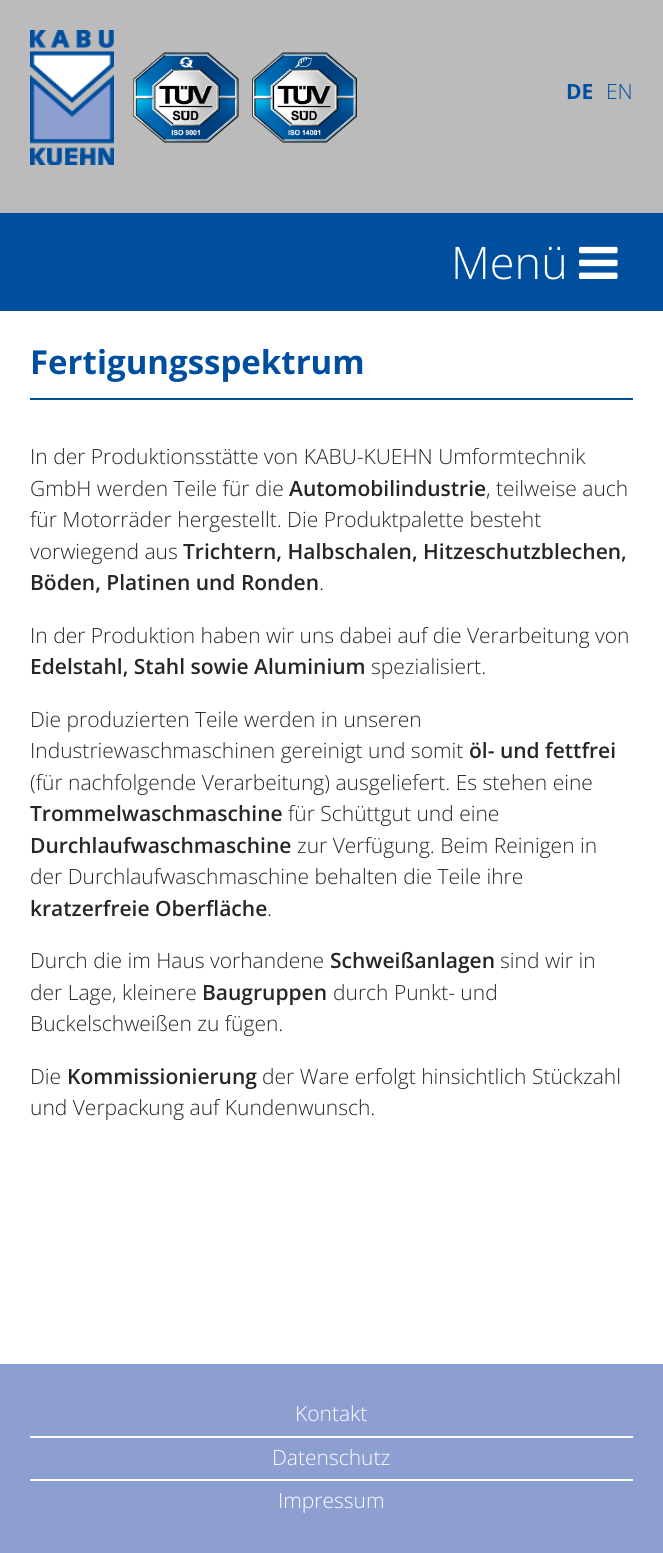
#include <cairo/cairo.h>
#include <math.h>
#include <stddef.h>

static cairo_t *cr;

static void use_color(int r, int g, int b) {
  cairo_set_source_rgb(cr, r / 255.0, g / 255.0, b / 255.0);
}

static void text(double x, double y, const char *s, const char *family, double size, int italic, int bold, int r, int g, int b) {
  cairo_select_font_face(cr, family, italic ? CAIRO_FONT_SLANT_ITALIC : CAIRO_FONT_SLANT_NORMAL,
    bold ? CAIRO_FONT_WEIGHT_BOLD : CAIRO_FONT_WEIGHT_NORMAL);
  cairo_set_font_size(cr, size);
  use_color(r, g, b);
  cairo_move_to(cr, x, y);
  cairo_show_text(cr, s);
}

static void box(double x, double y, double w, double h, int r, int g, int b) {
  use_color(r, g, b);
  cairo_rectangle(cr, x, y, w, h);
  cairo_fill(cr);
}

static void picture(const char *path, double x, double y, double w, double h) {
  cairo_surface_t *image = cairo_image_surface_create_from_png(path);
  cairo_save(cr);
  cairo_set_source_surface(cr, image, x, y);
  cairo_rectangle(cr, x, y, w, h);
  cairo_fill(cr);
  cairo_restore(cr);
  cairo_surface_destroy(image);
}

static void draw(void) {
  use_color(141, 158, 209);
  cairo_paint(cr);
  box(0, 0, 663, 213, 187, 187, 187);
  picture("img_01.png", 30, 30, 84, 135);
  picture("img_02.png", 133, 52, 106, 91);
  picture("img_03.png", 252, 52, 105, 91);
  box(0, 213, 663, 98, 0, 79, 159);
  picture("img_04.png", 579, 246, 39, 33);
  box(0, 311, 663, 1053, 255, 255, 255);
  box(30, 398, 603, 2, 0, 79, 159);
  box(30, 1436, 603, 2, 255, 255, 255);
  box(30, 1479, 603, 2, 255, 255, 255);
  text(566, 99, "DE", "Open Sans", 21, 0, 1, 0, 79, 159);
  text(606, 99, "EN", "Open Sans Light", 21, 0, 0, 0, 79, 159);
  text(451, 279, "Menü", "Open Sans Light", 45, 0, 0, 255, 255, 255);
  text(30, 374, "Fertigungsspektrum", "Open Sans", 33, 0, 1, 0, 79, 159);
  text(30, 464, "In der Produktionsstätte von KABU-KUEHN Umformtechnik", "Open Sans Light", 21, 0, 0, 40, 37, 37);
  text(30, 496, "GmbH werden Teile für die", "Open Sans Light", 21, 0, 0, 40, 37, 37);
  text(289, 496, "Automobilindustrie", "Open Sans SemiBold", 21, 0, 0, 40, 37, 37);
  text(486, 496, ", teilweise auch", "Open Sans Light", 21, 0, 0, 40, 37, 37);
  text(30, 527, "für Motorräder hergestellt. Die Produktpalette besteht", "Open Sans Light", 21, 0, 0, 40, 37, 37);
  text(30, 559, "vorwiegend aus", "Open Sans Light", 21, 0, 0, 40, 37, 37);
  text(183, 559, "Trichtern, Halbschalen, Hitzeschutzblechen,", "Open Sans SemiBold", 21, 0, 0, 40, 37, 37);
  text(30, 590, "Böden, Platinen und Ronden", "Open Sans SemiBold", 21, 0, 0, 40, 37, 37);
  text(319, 590, ".", "Open Sans Light", 21, 0, 0, 40, 37, 37);
  text(30, 643, "In der Produktion haben wir uns dabei auf die Verarbeitung von", "Open Sans Light", 21, 0, 0, 40, 37, 37);
  text(30, 674, "Edelstahl, Stahl sowie Aluminium", "Open Sans SemiBold", 21, 0, 0, 40, 37, 37);
  text(371, 674, "spezialisiert.", "Open Sans Light", 21, 0, 0, 40, 37, 37);
  text(30, 727, "Die produzierten Teile werden in unseren", "Open Sans Light", 21, 0, 0, 40, 37, 37);
  text(30, 758, "Industriewaschmaschinen gereinigt und somit", "Open Sans Light", 21, 0, 0, 40, 37, 37);
  text(469, 758, "öl- und fettfrei", "Open Sans SemiBold", 21, 0, 0, 40, 37, 37);
  text(30, 790, "(für nachfolgende Verarbeitung) ausgeliefert. Es stehen eine", "Open Sans Light", 21, 0, 0, 40, 37, 37);
  text(30, 821, "Trommelwaschmaschine", "Open Sans SemiBold", 21, 0, 0, 40, 37, 37);
  text(288, 821, "für Schüttgut und eine", "Open Sans Light", 21, 0, 0, 40, 37, 37);
  text(30, 853, "Durchlaufwaschmaschine", "Open Sans SemiBold", 21, 0, 0, 40, 37, 37);
  text(297, 853, "zur Verfügung. Beim Reinigen in", "Open Sans Light", 21, 0, 0, 40, 37, 37);
  text(30, 884, "der Durchlaufwaschmaschine behalten die Teile ihre", "Open Sans Light", 21, 0, 0, 40, 37, 37);
  text(30, 916, "kratzerfreie Oberfläche", "Open Sans SemiBold", 21, 0, 0, 40, 37, 37);
  text(267, 916, ".", "Open Sans Light", 21, 0, 0, 40, 37, 37);
  text(30, 968, "Durch die im Haus vorhandene", "Open Sans Light", 21, 0, 0, 40, 37, 37);
  text(330, 968, "Schweißanlagen", "Open Sans SemiBold", 21, 0, 0, 40, 37, 37);
  text(500, 968, "sind wir in", "Open Sans Light", 21, 0, 0, 40, 37, 37);
  text(30, 1000, "der Lage, kleinere", "Open Sans Light", 21, 0, 0, 40, 37, 37);
  text(202, 1000, "Baugruppen", "Open Sans SemiBold", 21, 0, 0, 40, 37, 37);
  text(333, 1000, "durch Punkt- und", "Open Sans Light", 21, 0, 0, 40, 37, 37);
  text(30, 1031, "Buckelschweißen zu fügen.", "Open Sans Light", 21, 0, 0, 40, 37, 37);
  text(30, 1084, "Die", "Open Sans Light", 21, 0, 0, 40, 37, 37);
  text(67, 1084, "Kommissionierung", "Open Sans SemiBold", 21, 0, 0, 40, 37, 37);
  text(262, 1084, "der Ware erfolgt hinsichtlich Stückzahl", "Open Sans Light", 21, 0, 0, 40, 37, 37);
  text(30, 1115, "und Verpackung auf Kundenwunsch.", "Open Sans Light", 21, 0, 0, 40, 37, 37);
  text(295, 1421, "Kontakt", "Open Sans Light", 21, 0, 0, 255, 255, 255);
  text(272, 1465, "Datenschutz", "Open Sans Light", 21, 0, 0, 255, 255, 255);
  text(278, 1508, "Impressum", "Open Sans Light", 21, 0, 0, 255, 255, 255);
}

int main(void) {
  cairo_surface_t *surface = cairo_image_surface_create(CAIRO_FORMAT_RGB24, 663, 1553);
  cr = cairo_create(surface);
  cairo_font_options_t *options = cairo_font_options_create();
  cairo_font_options_set_hint_metrics(options, CAIRO_HINT_METRICS_OFF);
  cairo_font_options_set_hint_style(options, CAIRO_HINT_STYLE_NONE);
  cairo_set_font_options(cr, options);
  cairo_set_miter_limit(cr, 4);
  draw();
  cairo_surface_write_to_png(surface, "out.png");
  cairo_font_options_destroy(options);
  cairo_destroy(cr);
  cairo_surface_destroy(surface);
  return 0;
}
